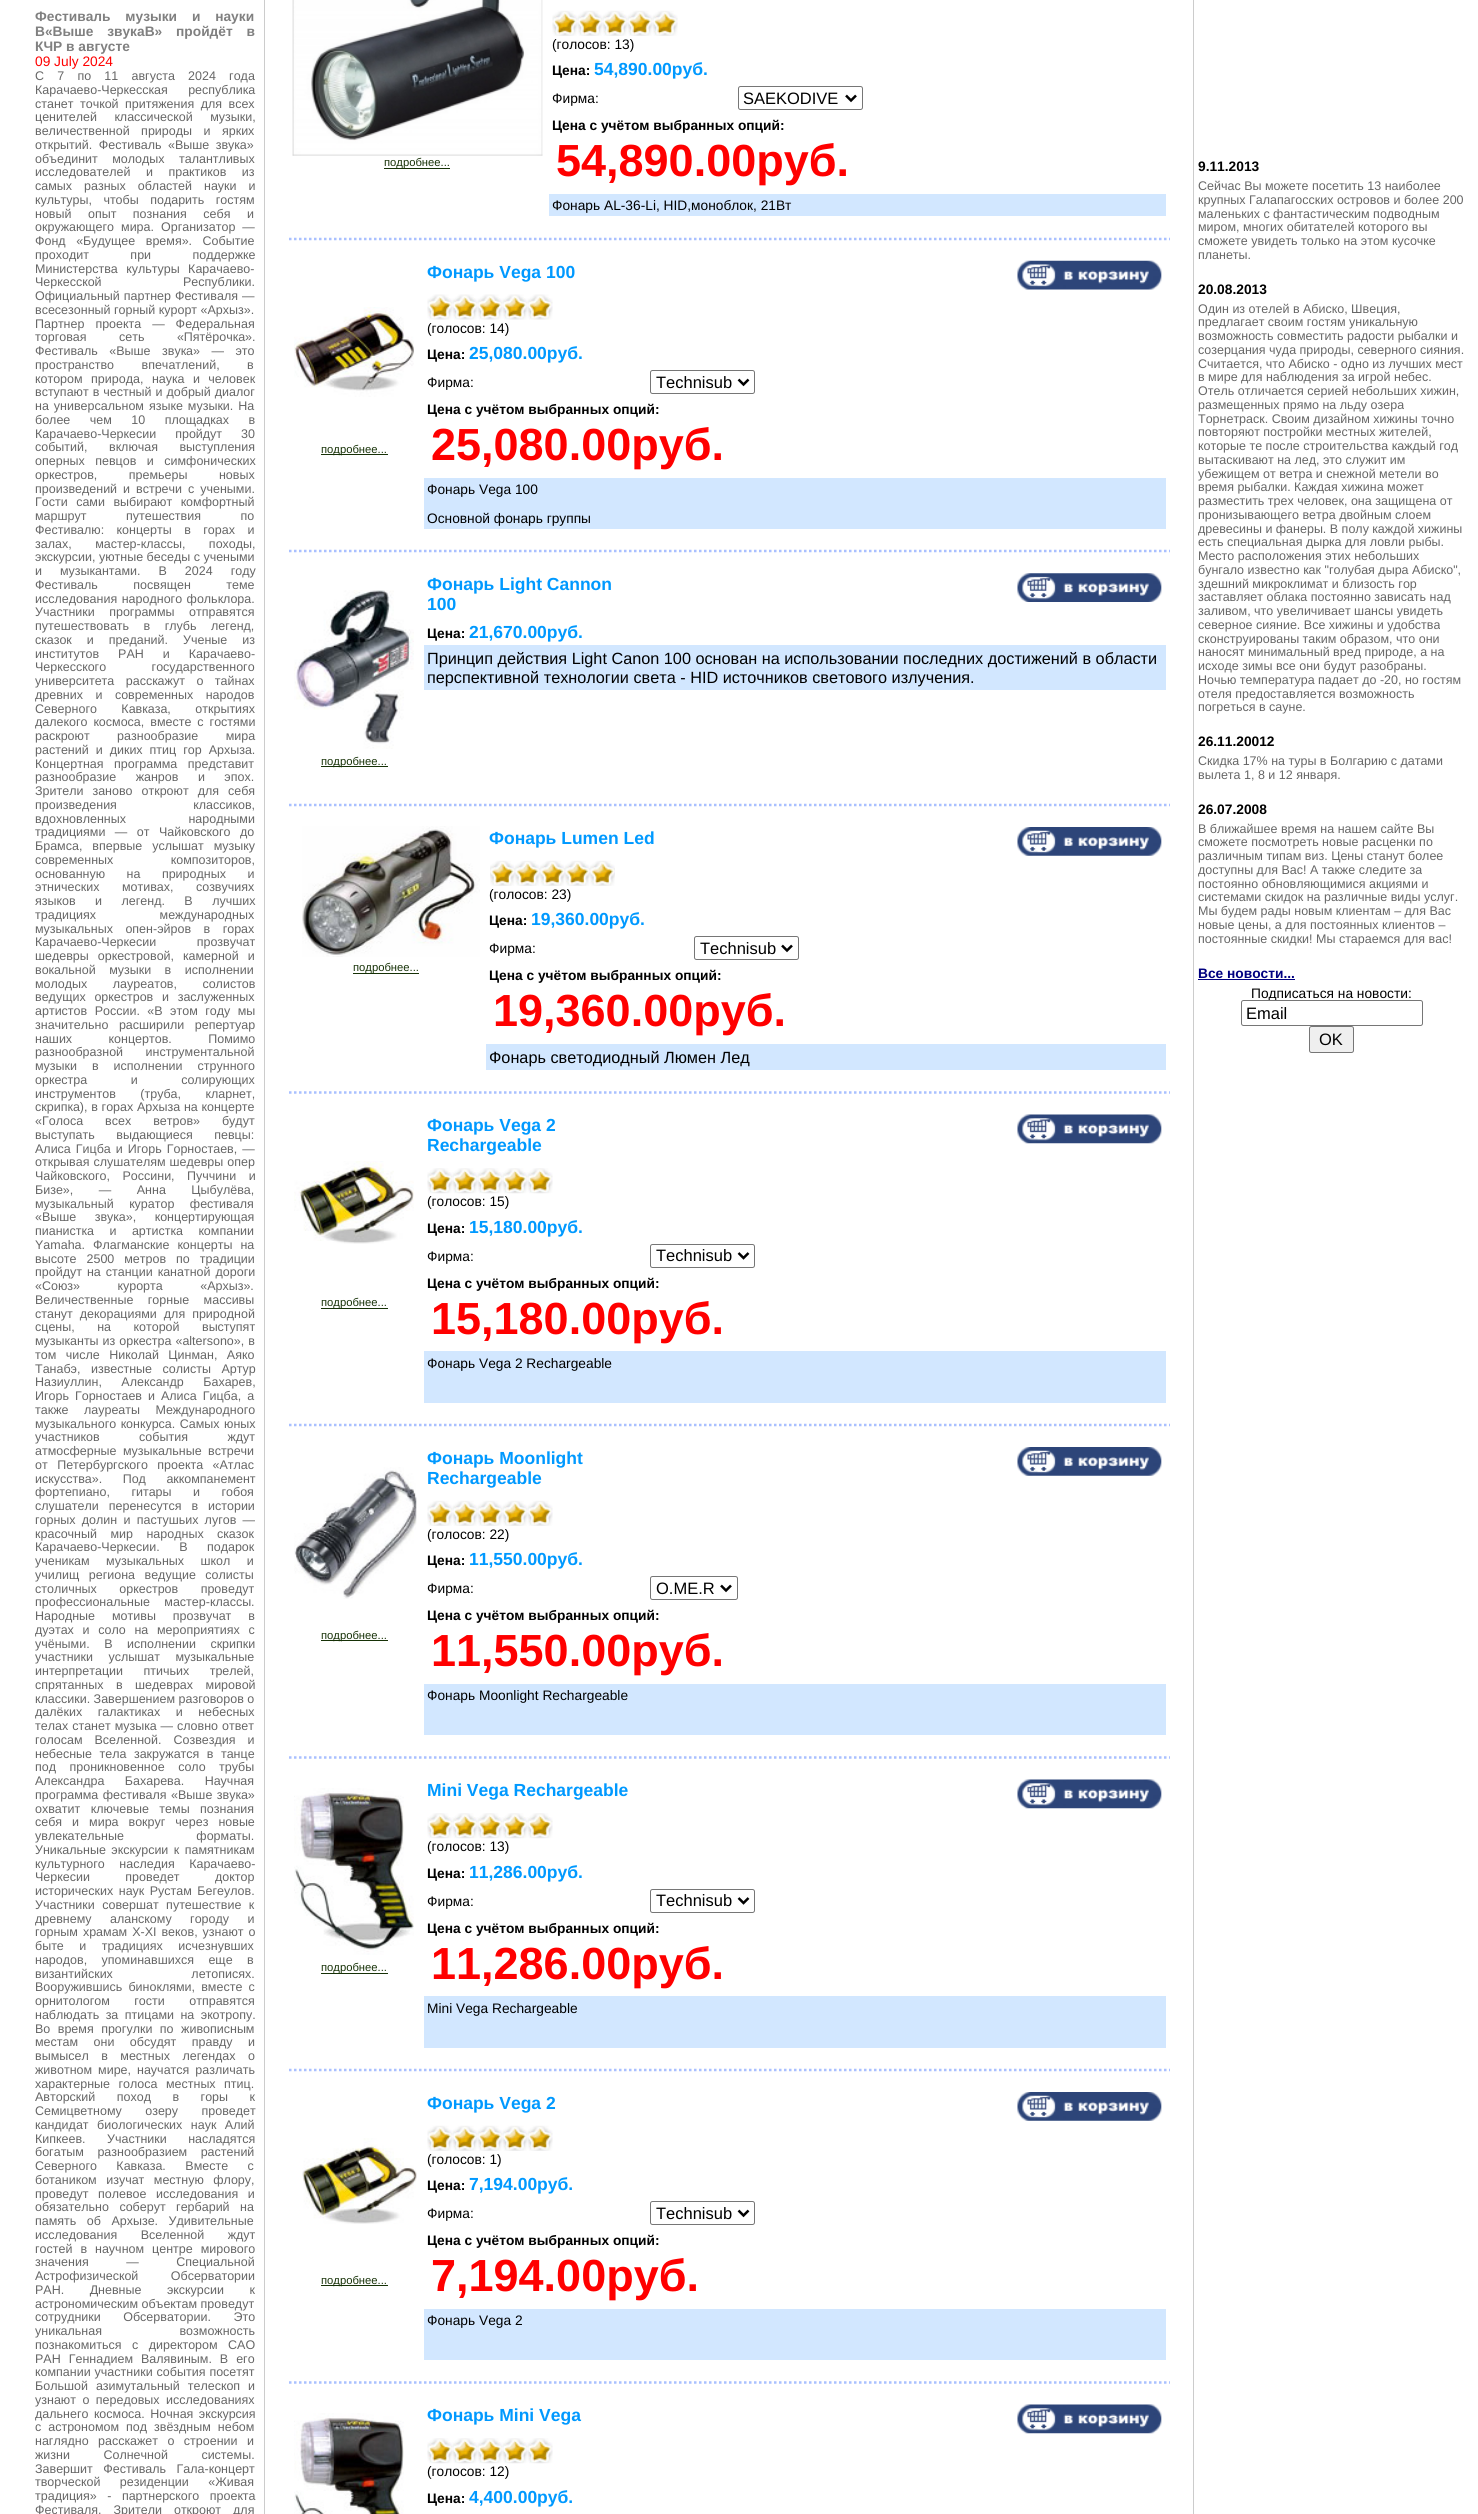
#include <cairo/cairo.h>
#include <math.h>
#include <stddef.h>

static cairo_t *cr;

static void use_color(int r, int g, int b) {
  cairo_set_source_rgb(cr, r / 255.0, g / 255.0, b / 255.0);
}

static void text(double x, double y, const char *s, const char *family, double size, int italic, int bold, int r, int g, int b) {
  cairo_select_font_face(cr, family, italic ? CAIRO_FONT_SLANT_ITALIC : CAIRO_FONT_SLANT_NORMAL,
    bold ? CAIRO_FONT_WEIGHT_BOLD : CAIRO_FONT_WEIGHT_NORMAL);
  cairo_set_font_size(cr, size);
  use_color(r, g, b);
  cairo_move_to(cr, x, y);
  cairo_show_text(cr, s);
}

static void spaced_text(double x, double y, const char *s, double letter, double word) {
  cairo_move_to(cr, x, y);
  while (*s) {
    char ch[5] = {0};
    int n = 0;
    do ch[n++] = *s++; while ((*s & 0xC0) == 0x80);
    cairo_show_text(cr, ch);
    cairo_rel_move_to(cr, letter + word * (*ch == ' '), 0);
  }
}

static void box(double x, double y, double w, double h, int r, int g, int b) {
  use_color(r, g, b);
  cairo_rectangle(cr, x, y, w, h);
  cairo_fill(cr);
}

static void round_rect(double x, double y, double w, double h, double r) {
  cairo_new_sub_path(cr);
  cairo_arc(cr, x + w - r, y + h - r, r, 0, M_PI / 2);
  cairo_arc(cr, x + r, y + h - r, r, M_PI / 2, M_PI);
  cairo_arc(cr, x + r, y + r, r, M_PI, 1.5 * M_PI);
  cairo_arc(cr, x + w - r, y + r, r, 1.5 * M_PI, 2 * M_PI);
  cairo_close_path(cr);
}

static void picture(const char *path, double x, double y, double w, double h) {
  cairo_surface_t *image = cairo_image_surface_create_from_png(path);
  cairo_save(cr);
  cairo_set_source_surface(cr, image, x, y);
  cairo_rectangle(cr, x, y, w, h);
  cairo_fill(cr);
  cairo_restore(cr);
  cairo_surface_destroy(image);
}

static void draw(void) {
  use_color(255, 255, 255);
  cairo_paint(cr);
  box(264, 0, 1, 2514, 204, 204, 204);
  picture("img_01.png", 292, 0, 251, 156);
  box(384, 168, 66, 1, 22, 49, 6);
  picture("img_02.png", 552, 10, 26, 26);
  picture("img_03.png", 577, 10, 26, 26);
  picture("img_04.png", 602, 10, 26, 26);
  picture("img_04.png", 627, 10, 26, 26);
  picture("img_04.png", 652, 10, 26, 26);
  round_rect(738.5, 86.5, 124, 23, 2);
  use_color(118, 118, 118);
  cairo_set_line_width(cr, 1);
  cairo_stroke(cr);
  cairo_new_path(cr);
  cairo_move_to(cr, 846, 95.5);
  cairo_line_to(cr, 851, 100.5);
  cairo_line_to(cr, 856, 95.5);
  use_color(0, 0, 0);
  cairo_set_line_width(cr, 2.5);
  cairo_stroke(cr);
  box(549, 194, 617, 22, 210, 231, 255);
  cairo_new_path(cr);
  cairo_move_to(cr, 289, 239);
  cairo_line_to(cr, 1170, 239);
  use_color(169, 192, 255);
  cairo_set_dash(cr, (double[]){2.5, 2.5}, 2, 0);
  cairo_stroke(cr);
  picture("img_05.png", 294, 307, 120, 90);
  box(321, 454, 67, 1, 22, 49, 6);
  picture("img_06.png", 427, 294, 26, 26);
  picture("img_07.png", 452, 294, 26, 26);
  picture("img_07.png", 477, 294, 26, 26);
  picture("img_07.png", 502, 294, 26, 26);
  picture("img_08.png", 527, 294, 26, 26);
  picture("img_09.png", 1017, 260, 145, 30);
  round_rect(650.5, 370.5, 104, 23, 2);
  use_color(118, 118, 118);
  cairo_set_line_width(cr, 1);
  cairo_set_dash(cr, NULL, 0, 0);
  cairo_stroke(cr);
  cairo_new_path(cr);
  cairo_move_to(cr, 738.5, 379.5);
  cairo_line_to(cr, 743.5, 384.5);
  cairo_line_to(cr, 748.5, 379.5);
  use_color(0, 0, 0);
  cairo_set_line_width(cr, 2.5);
  cairo_stroke(cr);
  box(424, 478, 742, 51, 210, 231, 255);
  cairo_new_path(cr);
  cairo_move_to(cr, 289, 551);
  cairo_line_to(cr, 1170, 551);
  use_color(169, 192, 255);
  cairo_set_dash(cr, (double[]){2.5, 2.5}, 2, 0);
  cairo_stroke(cr);
  picture("img_10.png", 1017, 573, 145, 29);
  box(424, 645, 742, 45, 210, 231, 255);
  picture("img_11.png", 294, 590, 120, 159);
  box(321, 766, 67, 1, 22, 49, 6);
  cairo_new_path(cr);
  cairo_move_to(cr, 289, 805);
  cairo_line_to(cr, 1170, 805);
  use_color(169, 192, 255);
  cairo_stroke(cr);
  picture("img_12.png", 302, 826, 178, 131);
  box(353, 973, 66, 1, 22, 49, 6);
  picture("img_13.png", 490, 860, 25, 26);
  picture("img_14.png", 515, 860, 25, 26);
  picture("img_15.png", 540, 860, 25, 26);
  picture("img_15.png", 565, 860, 25, 26);
  picture("img_14.png", 590, 860, 25, 26);
  picture("img_16.png", 1017, 827, 145, 29);
  round_rect(694.5, 936.5, 104, 23, 2);
  use_color(118, 118, 118);
  cairo_set_line_width(cr, 1);
  cairo_set_dash(cr, NULL, 0, 0);
  cairo_stroke(cr);
  cairo_new_path(cr);
  cairo_move_to(cr, 782, 945.5);
  cairo_line_to(cr, 787, 950.5);
  cairo_line_to(cr, 792, 945.5);
  use_color(0, 0, 0);
  cairo_set_line_width(cr, 2.5);
  cairo_stroke(cr);
  box(486, 1044, 680, 26, 210, 231, 255);
  cairo_new_path(cr);
  cairo_move_to(cr, 289, 1092.5);
  cairo_line_to(cr, 1170, 1092.5);
  use_color(169, 192, 255);
  cairo_set_dash(cr, (double[]){2.5, 2.5}, 2, 0);
  cairo_stroke(cr);
  picture("img_17.png", 294, 1161, 120, 83);
  box(321, 1308, 67, 1, 22, 49, 6);
  picture("img_18.png", 427, 1168, 26, 26);
  picture("img_19.png", 452, 1168, 26, 26);
  picture("img_19.png", 477, 1168, 26, 26);
  picture("img_19.png", 502, 1168, 26, 26);
  picture("img_20.png", 527, 1168, 26, 26);
  picture("img_21.png", 1017, 1114, 145, 30);
  round_rect(650.5, 1244.5, 104, 23, 2);
  use_color(118, 118, 118);
  cairo_set_line_width(cr, 1);
  cairo_set_dash(cr, NULL, 0, 0);
  cairo_stroke(cr);
  cairo_new_path(cr);
  cairo_move_to(cr, 738.5, 1253);
  cairo_line_to(cr, 743.5, 1258);
  cairo_line_to(cr, 748.5, 1253);
  use_color(0, 0, 0);
  cairo_set_line_width(cr, 2.5);
  cairo_stroke(cr);
  box(424, 1351, 742, 52, 210, 231, 255);
  cairo_new_path(cr);
  cairo_move_to(cr, 289, 1425);
  cairo_line_to(cr, 1170, 1425);
  use_color(169, 192, 255);
  cairo_set_dash(cr, (double[]){2.5, 2.5}, 2, 0);
  cairo_stroke(cr);
  picture("img_22.png", 294, 1467, 123, 132);
  box(321, 1640, 67, 1, 22, 49, 6);
  picture("img_23.png", 427, 1500, 26, 26);
  picture("img_04.png", 452, 1500, 26, 26);
  picture("img_04.png", 477, 1500, 26, 26);
  picture("img_04.png", 502, 1500, 26, 26);
  picture("img_03.png", 527, 1500, 26, 26);
  picture("img_16.png", 1017, 1447, 145, 29);
  round_rect(650.5, 1576.5, 87, 23, 2);
  use_color(118, 118, 118);
  cairo_set_line_width(cr, 1);
  cairo_set_dash(cr, NULL, 0, 0);
  cairo_stroke(cr);
  cairo_new_path(cr);
  cairo_move_to(cr, 721, 1585.5);
  cairo_line_to(cr, 726, 1590.5);
  cairo_line_to(cr, 731, 1585.5);
  use_color(0, 0, 0);
  cairo_set_line_width(cr, 2.5);
  cairo_stroke(cr);
  box(424, 1684, 742, 51, 210, 231, 255);
  cairo_new_path(cr);
  cairo_move_to(cr, 289, 1757.5);
  cairo_line_to(cr, 1170, 1757.5);
  use_color(169, 192, 255);
  cairo_set_dash(cr, (double[]){2.5, 2.5}, 2, 0);
  cairo_stroke(cr);
  picture("img_24.png", 294, 1788, 120, 167);
  box(321, 1973, 67, 1, 22, 49, 6);
  picture("img_18.png", 427, 1813, 26, 26);
  picture("img_19.png", 452, 1813, 26, 26);
  picture("img_19.png", 477, 1813, 26, 26);
  picture("img_19.png", 502, 1813, 26, 26);
  picture("img_20.png", 527, 1813, 26, 26);
  picture("img_21.png", 1017, 1779, 145, 30);
  round_rect(650.5, 1889.5, 104, 23, 2);
  use_color(118, 118, 118);
  cairo_set_line_width(cr, 1);
  cairo_set_dash(cr, NULL, 0, 0);
  cairo_stroke(cr);
  cairo_new_path(cr);
  cairo_move_to(cr, 738.5, 1898);
  cairo_line_to(cr, 743.5, 1903);
  cairo_line_to(cr, 748.5, 1898);
  use_color(0, 0, 0);
  cairo_set_line_width(cr, 2.5);
  cairo_stroke(cr);
  box(424, 1996, 742, 52, 210, 231, 255);
  cairo_new_path(cr);
  cairo_move_to(cr, 289, 2070);
  cairo_line_to(cr, 1170, 2070);
  use_color(169, 192, 255);
  cairo_set_dash(cr, (double[]){2.5, 2.5}, 2, 0);
  cairo_stroke(cr);
  picture("img_25.png", 302, 2138, 115, 86);
  box(321, 2285, 67, 1, 22, 49, 6);
  picture("img_23.png", 427, 2125, 26, 26);
  picture("img_04.png", 452, 2125, 26, 26);
  picture("img_04.png", 477, 2125, 26, 26);
  picture("img_04.png", 502, 2125, 26, 26);
  picture("img_03.png", 527, 2125, 26, 26);
  picture("img_16.png", 1017, 2092, 145, 29);
  round_rect(650.5, 2201.5, 104, 23, 2);
  use_color(118, 118, 118);
  cairo_set_line_width(cr, 1);
  cairo_set_dash(cr, NULL, 0, 0);
  cairo_stroke(cr);
  cairo_new_path(cr);
  cairo_move_to(cr, 738.5, 2210.5);
  cairo_line_to(cr, 743.5, 2215.5);
  cairo_line_to(cr, 748.5, 2210.5);
  use_color(0, 0, 0);
  cairo_set_line_width(cr, 2.5);
  cairo_stroke(cr);
  box(424, 2309, 742, 51, 210, 231, 255);
  cairo_new_path(cr);
  cairo_move_to(cr, 289, 2382.5);
  cairo_line_to(cr, 1170, 2382.5);
  use_color(169, 192, 255);
  cairo_set_dash(cr, (double[]){2.5, 2.5}, 2, 0);
  cairo_stroke(cr);
  picture("img_26.png", 294, 2413, 110, 101);
  picture("img_18.png", 427, 2438, 26, 26);
  picture("img_19.png", 452, 2438, 26, 26);
  picture("img_19.png", 477, 2438, 26, 26);
  picture("img_19.png", 502, 2438, 26, 26);
  picture("img_20.png", 527, 2438, 26, 26);
  picture("img_21.png", 1017, 2404, 145, 30);
  box(1193, 0, 1, 2514, 204, 204, 204);
  box(1198, 979, 97, 1, 0, 0, 128);
  use_color(239, 239, 239);
  round_rect(1309.5, 1026.5, 44, 26, 2);
  cairo_fill_preserve(cr);
  use_color(118, 118, 118);
  cairo_set_line_width(cr, 1);
  cairo_set_dash(cr, NULL, 0, 0);
  cairo_stroke(cr);
  cairo_select_font_face(cr, "Liberation Sans", CAIRO_FONT_SLANT_NORMAL, CAIRO_FONT_WEIGHT_BOLD);
  cairo_set_font_size(cr, 13.75);
  use_color(128, 128, 128);
  spaced_text(35, 21, "Фестиваль музыки и науки", 0, 11);
  spaced_text(35, 36, "В«Выше звукаВ» пройдёт в", 0, 10);
  text(35, 51, "КЧР в августе", "Liberation Sans", 13.75, 0, 1, 128, 128, 128);
  text(35, 66, "09 July 2024", "Liberation Sans", 13.75, 0, 0, 255, 0, 0);
  cairo_set_font_size(cr, 12.5);
  use_color(102, 102, 102);
  spaced_text(35, 80, "С 7 по 11 августа 2024 года", 0, 9.75);
  spaced_text(35, 94, "Карачаево-Черкесская республика", 0, 17);
  spaced_text(35, 108, "станет точкой притяжения для всех", 0, 3);
  spaced_text(35, 121, "ценителей классической музыки,", 0, 14);
  spaced_text(35, 135, "величественной природы и ярких", 0, 8);
  spaced_text(35, 149, "открытий. Фестиваль «Выше звука»", 0, 3);
  spaced_text(35, 163, "объединит молодых талантливых", 0, 11);
  spaced_text(35, 176, "исследователей и практиков из", 0, 12);
  spaced_text(35, 190, "самых разных областей науки и", 0, 8.5);
  spaced_text(35, 204, "культуры, чтобы подарить гостям", 0, 8);
  spaced_text(35, 218, "новый опыт познания себя и", 0, 13);
  spaced_text(35, 231, "окружающего мира. Организатор —", 0, 3.5);
  spaced_text(35, 245, "Фонд «Будущее время». Событие", 0, 7);
  spaced_text(35, 259, "проходит при поддержке", 0, 38);
  spaced_text(35, 273, "Министерства культуры Карачаево-", 0, 5);
  spaced_text(35, 286, "Черкесской Республики.", 0, 78);
  spaced_text(35, 300, "Официальный партнер Фестиваля —", 0, 0.5);
  text(35, 314, "всесезонный горный курорт «Архыз».", "Liberation Sans", 12.5, 0, 0, 102, 102, 102);
  spaced_text(35, 328, "Партнер проекта — Федеральная", 0, 7.5);
  spaced_text(35, 341, "торговая сеть «Пятёрочка».", 0, 29);
  spaced_text(35, 355, "Фестиваль «Выше звука» — это", 0, 8);
  spaced_text(35, 369, "пространство впечатлений, в", 0, 24);
  spaced_text(35, 383, "котором природа, наука и человек", 0, 5);
  spaced_text(35, 396, "вступают в честный и добрый диалог", 0, 0.5);
  spaced_text(35, 410, "на универсальном языке музыки. На", 0, 1.5);
  spaced_text(35, 424, "более чем 10 площадках в", 0, 16);
  spaced_text(35, 438, "Карачаево-Черкесии пройдут 30", 0, 15.5);
  spaced_text(35, 451, "событий, включая выступления", 0, 18);
  spaced_text(35, 465, "оперных певцов и симфонических", 0, 7);
  spaced_text(35, 479, "оркестров, премьеры новых", 0, 28);
  spaced_text(35, 493, "произведений и встречи с учеными.", 0, 2.5);
  spaced_text(35, 506, "Гости сами выбирают комфортный", 0, 5);
  spaced_text(35, 520, "маршрут путешествия по", 0, 36);
  spaced_text(35, 534, "Фестивалю: концерты в горах и", 0, 9);
  spaced_text(35, 548, "залах, мастер-классы, походы,", 0, 20);
  text(35, 561, "экскурсии, уютные беседы с учеными", "Liberation Sans", 12.5, 0, 0, 102, 102, 102);
  spaced_text(35, 575, "и музыкантами. В 2024 году", 0, 14.5);
  spaced_text(35, 589, "Фестиваль посвящен теме", 0, 32);
  spaced_text(35, 603, "исследования народного фольклора.", 0, 1);
  spaced_text(35, 616, "Участники программы отправятся", 0, 11);
  spaced_text(35, 630, "путешествовать в глубь легенд,", 0, 11);
  spaced_text(35, 644, "сказок и преданий. Ученые из", 0, 11.5);
  spaced_text(35, 658, "институтов РАН и Карачаево-", 0, 15.5);
  spaced_text(35, 671, "Черкесского государственного", 0, 42);
  spaced_text(35, 685, "университета расскажут о тайнах", 0, 8);
  spaced_text(35, 699, "древних и современных народов", 0, 9);
  spaced_text(35, 713, "Северного Кавказа, открытиях", 0, 21);
  spaced_text(35, 726, "далекого космоса, вместе с гостями", 0, 2.5);
  spaced_text(35, 740, "раскроют разнообразие мира", 0, 24);
  spaced_text(35, 754, "растений и диких птиц гор Архыза.", 0, 3.5);
  spaced_text(35, 768, "Концертная программа представит", 0, 7);
  spaced_text(35, 781, "разнообразие жанров и эпох.", 0, 16);
  spaced_text(35, 795, "Зрители заново откроют для себя", 0, 5.5);
  spaced_text(35, 809, "произведения классиков,", 0, 73);
  spaced_text(35, 823, "вдохновленных народными", 0, 59);
  spaced_text(35, 836, "традициями — от Чайковского до", 0, 6);
  spaced_text(35, 850, "Брамса, впервые услышат музыку", 0, 6.5);
  spaced_text(35, 864, "современных композиторов,", 0, 54);
  spaced_text(35, 878, "основанную на природных и", 0, 18);
  spaced_text(35, 891, "этнических мотивах, созвучиях", 0, 19);
  spaced_text(35, 905, "языков и легенд. В лучших", 0, 16);
  spaced_text(35, 919, "традициях международных", 0, 60);
  spaced_text(35, 933, "музыкальных опен-эйров в горах", 0, 9);
  spaced_text(35, 946, "Карачаево-Черкесии прозвучат", 0, 37);
  spaced_text(35, 960, "шедевры оркестровой, камерной и", 0, 5.5);
  spaced_text(35, 974, "вокальной музыки в исполнении", 0, 10);
  spaced_text(35, 988, "молодых лауреатов, солистов", 0, 22);
  spaced_text(35, 1001, "ведущих оркестров и заслуженных", 0, 5.25);
  spaced_text(35, 1015, "артистов России. «В этом году мы", 0, 4);
  spaced_text(35, 1029, "значительно расширили репертуар", 0, 7);
  spaced_text(35, 1043, "наших концертов. Помимо", 0, 33);
  spaced_text(35, 1056, "разнообразной инструментальной", 0, 19);
  spaced_text(35, 1070, "музыки в исполнении струнного", 0, 11.5);
  spaced_text(35, 1084, "оркестра и солирующих", 0, 40);
  spaced_text(35, 1098, "инструментов (труба, кларнет,", 0, 21);
  spaced_text(35, 1111, "скрипка), в горах Архыза на концерте", 0, 0.25);
  spaced_text(35, 1125, "«Голоса всех ветров» будут", 0, 18.5);
  spaced_text(35, 1139, "выступать выдающиеся певцы:", 0, 18);
  spaced_text(35, 1153, "Алиса Гицба и Игорь Горностаев, —", 0, 1.5);
  spaced_text(35, 1166, "открывая слушателям шедевры опер", 0, 0.5);
  spaced_text(35, 1180, "Чайковского, Россини, Пуччини и", 0, 9);
  spaced_text(35, 1194, "Бизе», — Анна Цыбулёва,", 0, 22);
  spaced_text(35, 1208, "музыкальный куратор фестиваля", 0, 12);
  spaced_text(35, 1221, "«Выше звука», концертирующая", 0, 15);
  spaced_text(35, 1235, "пианистка и артистка компании", 0, 12);
  spaced_text(35, 1249, "Yamaha. Флагманские концерты на", 0, 4.5);
  spaced_text(35, 1263, "высоте 2500 метров по традиции", 0, 6.5);
  spaced_text(35, 1276, "пройдут на станции канатной дороги", 0, 1.5);
  spaced_text(35, 1290, "«Союз» курорта «Архыз».", 0, 34);
  spaced_text(35, 1304, "Величественные горные массивы", 0, 11);
  spaced_text(35, 1318, "станут декорациями для природной", 0, 3.5);
  spaced_text(35, 1331, "сцены, на которой выступят", 0, 19);
  spaced_text(35, 1345, "музыканты из оркестра «altersono», в", 0, 0.5);
  spaced_text(35, 1359, "том числе Николай Цинман, Аяко", 0, 6);
  spaced_text(35, 1373, "Танабэ, известные солисты Артур", 0, 7);
  spaced_text(35, 1386, "Назиуллин, Александр Бахарев,", 0, 16);
  spaced_text(35, 1400, "Игорь Горностаев и Алиса Гицба, а", 0, 2.5);
  spaced_text(35, 1414, "также лауреаты Международного", 0, 12);
  spaced_text(35, 1428, "музыкального конкурса. Самых юных", 0, 1);
  spaced_text(35, 1441, "участников события ждут", 0, 36);
  spaced_text(35, 1455, "атмосферные музыкальные встречи", 0, 3);
  spaced_text(35, 1469, "от Петербургского проекта «Атлас", 0, 6);
  spaced_text(35, 1483, "искусства». Под аккомпанемент", 0, 17);
  spaced_text(35, 1496, "фортепиано, гитары и гобоя", 0, 18);
  spaced_text(35, 1510, "слушатели перенесутся в истории", 0, 6.5);
  spaced_text(35, 1524, "горных долин и пастушьих лугов —", 0, 2.75);
  spaced_text(35, 1538, "красочный мир народных сказок", 0, 10);
  spaced_text(35, 1551, "Карачаево-Черкесии. В подарок", 0, 16);
  spaced_text(35, 1565, "ученикам музыкальных школ и", 0, 13);
  spaced_text(35, 1579, "училищ региона ведущие солисты", 0, 6);
  spaced_text(35, 1593, "столичных оркестров проведут", 0, 19);
  spaced_text(35, 1606, "профессиональные мастер-классы.", 0, 11);
  spaced_text(35, 1620, "Народные мотивы прозвучат в", 0, 13.5);
  spaced_text(35, 1634, "дуэтах и соло на мероприятиях с", 0, 5.25);
  spaced_text(35, 1648, "учёными. В исполнении скрипки", 0, 11);
  spaced_text(35, 1661, "участники услышат музыкальные", 0, 12);
  spaced_text(35, 1675, "интерпретации птичьих трелей,", 0, 17);
  spaced_text(35, 1689, "спрятанных в шедеврах мировой", 0, 9);
  text(35, 1703, "классики. Завершением разговоров о", "Liberation Sans", 12.5, 0, 0, 102, 102, 102);
  spaced_text(35, 1716, "далёких галактиках и небесных", 0, 12);
  spaced_text(35, 1730, "телах станет музыка — словно ответ", 0, 0.5);
  spaced_text(35, 1744, "голосам Вселенной. Созвездия и", 0, 8.5);
  spaced_text(35, 1758, "небесные тела закружатся в танце", 0, 4);
  spaced_text(35, 1771, "под проникновенное соло трубы", 0, 10);
  spaced_text(35, 1785, "Александра Бахарева. Научная", 0, 17);
  spaced_text(35, 1799, "программа фестиваля «Выше звука»", 0, 1);
  spaced_text(35, 1813, "охватит ключевые темы познания", 0, 7);
  spaced_text(35, 1826, "себя и мира вокруг через новые", 0, 6.5);
  spaced_text(35, 1840, "увлекательные форматы.", 0, 69);
  spaced_text(35, 1854, "Уникальные экскурсии к памятникам", 0, 2);
  spaced_text(35, 1868, "культурного наследия Карачаево-", 0, 11);
  spaced_text(35, 1881, "Черкесии проведет доктор", 0, 32);
  spaced_text(35, 1895, "исторических наук Рустам Бегеулов.", 0, 2);
  spaced_text(35, 1909, "Участники совершат путешествие к", 0, 4);
  spaced_text(35, 1923, "древнему аланскому городу и", 0, 15);
  spaced_text(35, 1936, "горным храмам X-XI веков, узнают о", 0, 1.5);
  spaced_text(35, 1950, "быте и традициях исчезнувших", 0, 12);
  spaced_text(35, 1964, "народов, упоминавшихся еще в", 0, 11);
  spaced_text(35, 1978, "византийских летописях.", 0, 75);
  spaced_text(35, 1991, "Вооружившись биноклями, вместе с", 0, 2.75);
  spaced_text(35, 2005, "орнитологом гости отправятся", 0, 21);
  spaced_text(35, 2019, "наблюдать за птицами на экотропу.", 0, 3);
  spaced_text(35, 2033, "Во время прогулки по живописным", 0, 4);
  spaced_text(35, 2046, "местам они обсудят правду и", 0, 12);
  spaced_text(35, 2060, "вымысел в местных легендах о", 0, 9);
  spaced_text(35, 2074, "животном мире, научатся различать", 0, 2.5);
  spaced_text(35, 2088, "характерные голоса местных птиц.", 0, 5);
  spaced_text(35, 2101, "Авторский поход в горы к", 0, 18);
  spaced_text(35, 2115, "Семицветному озеру проведет", 0, 20);
  spaced_text(35, 2129, "кандидат биологических наук Алий", 0, 5);
  spaced_text(35, 2143, "Кипкеев. Участники насладятся", 0, 18);
  spaced_text(35, 2156, "богатым разнообразием растений", 0, 10);
  spaced_text(35, 2170, "Северного Кавказа. Вместе с", 0, 16);
  spaced_text(35, 2184, "ботаником изучат местную флору,", 0, 6);
  spaced_text(35, 2198, "проведут полевое исследования и", 0, 6);
  spaced_text(35, 2211, "обязательно соберут гербарий на", 0, 7);
  spaced_text(35, 2225, "память об Архызе. Удивительные", 0, 7);
  spaced_text(35, 2239, "исследования Вселенной ждут", 0, 20);
  spaced_text(35, 2253, "гостей в научном центре мирового", 0, 4.5);
  spaced_text(35, 2266, "значения — Специальной", 0, 34);
  spaced_text(35, 2280, "Астрофизической Обсерватории", 0, 29);
  spaced_text(35, 2294, "РАН. Дневные экскурсии к", 0, 22);
  text(35, 2308, "астрономическим объектам проведут", "Liberation Sans", 12.5, 0, 0, 102, 102, 102);
  spaced_text(35, 2321, "сотрудники Обсерватории. Это", 0, 19);
  spaced_text(35, 2335, "уникальная возможность", 0, 74);
  spaced_text(35, 2349, "познакомиться с директором САО", 0, 7);
  spaced_text(35, 2363, "РАН Геннадием Валявиным. В его", 0, 4.5);
  spaced_text(35, 2376, "компании участники события посетят", 0, 0.5);
  spaced_text(35, 2390, "Большой азимутальный телескоп и", 0, 4.5);
  spaced_text(35, 2404, "узнают о передовых исследованиях", 0, 3);
  spaced_text(35, 2418, "дальнего космоса. Ночная экскурсия", 0, 2);
  spaced_text(35, 2431, "с астрономом под звёздным небом", 0, 3.5);
  spaced_text(35, 2445, "наглядно расскажет о строении и", 0, 6);
  spaced_text(35, 2459, "жизни Солнечной системы.", 0, 30);
  spaced_text(35, 2473, "Завершит Фестиваль Гала-концерт", 0, 7);
  spaced_text(35, 2486, "творческой резиденции «Живая", 0, 16);
  spaced_text(35, 2500, "традиция» - партнерского проекта", 0, 7);
  spaced_text(35, 2514, "Фестиваля. Зрители откроют для", 0, 8.5);
  text(384, 166, "подробнее...", "Liberation Sans", 11.25, 0, 0, 22, 49, 6);
  text(552, 49, "(голосов: 13)", "Liberation Sans", 13.75, 0, 0, 0, 0, 0);
  text(552, 75, "Цена:", "Liberation Sans", 13.75, 0, 1, 0, 0, 0);
  text(594, 75, "54,890.00руб.", "Liberation Sans", 17.5, 0, 1, 0, 153, 255);
  text(552, 103, "Фирма:", "Liberation Sans", 13.75, 0, 0, 0, 0, 0);
  text(743, 104, "SAEKODIVE", "Liberation Sans", 16.5, 0, 0, 0, 0, 0);
  text(552, 130, "Цена с учётом выбранных опций:", "Liberation Sans", 13.75, 0, 1, 0, 0, 0);
  text(556, 176, "54,890.00руб.", "Liberation Sans", 45, 0, 1, 255, 0, 0);
  text(552, 210, "Фонарь AL-36-Li, HID,моноблок, 21Вт", "Liberation Sans", 13.75, 0, 0, 0, 0, 0);
  text(321, 453, "подробнее...", "Liberation Sans", 11.25, 0, 0, 22, 49, 6);
  text(427, 278, "Фонарь Vega 100", "Liberation Sans", 17.5, 0, 1, 0, 153, 255);
  text(427, 333, "(голосов: 14)", "Liberation Sans", 13.75, 0, 0, 0, 0, 0);
  text(427, 359, "Цена:", "Liberation Sans", 13.75, 0, 1, 0, 0, 0);
  text(469, 359, "25,080.00руб.", "Liberation Sans", 17.5, 0, 1, 0, 153, 255);
  text(427, 387, "Фирма:", "Liberation Sans", 13.75, 0, 0, 0, 0, 0);
  text(656, 388, "Technisub", "Liberation Sans", 16.5, 0, 0, 0, 0, 0);
  text(427, 414, "Цена с учётом выбранных опций:", "Liberation Sans", 13.75, 0, 1, 0, 0, 0);
  text(431, 460, "25,080.00руб.", "Liberation Sans", 45, 0, 1, 255, 0, 0);
  text(427, 494, "Фонарь Vega 100", "Liberation Sans", 13.75, 0, 0, 0, 0, 0);
  text(427, 523, "Основной фонарь группы", "Liberation Sans", 13.75, 0, 0, 0, 0, 0);
  text(427, 590, "Фонарь Light Cannon", "Liberation Sans", 17.5, 0, 1, 0, 153, 255);
  text(427, 610, "100", "Liberation Sans", 17.5, 0, 1, 0, 153, 255);
  text(427, 638, "Цена:", "Liberation Sans", 13.75, 0, 1, 0, 0, 0);
  text(469, 638, "21,670.00руб.", "Liberation Sans", 17.5, 0, 1, 0, 153, 255);
  text(427, 664, "Принцип действия Light Canon 100 основан на использовании последних достижений в области", "Liberation Sans", 16.25, 0, 0, 0, 0, 0);
  text(427, 683, "перспективной технологии света - HID источников светового излучения.", "Liberation Sans", 16.25, 0, 0, 0, 0, 0);
  text(321, 765, "подробнее...", "Liberation Sans", 11.25, 0, 0, 22, 49, 6);
  text(353, 971, "подробнее...", "Liberation Sans", 11.25, 0, 0, 22, 49, 6);
  text(489, 844, "Фонарь Lumen Led", "Liberation Sans", 17.5, 0, 1, 0, 153, 255);
  text(489, 899, "(голосов: 23)", "Liberation Sans", 13.75, 0, 0, 0, 0, 0);
  text(489, 925, "Цена:", "Liberation Sans", 13.75, 0, 1, 0, 0, 0);
  text(531, 925, "19,360.00руб.", "Liberation Sans", 17.5, 0, 1, 0, 153, 255);
  text(489, 953, "Фирма:", "Liberation Sans", 13.75, 0, 0, 0, 0, 0);
  text(700, 954, "Technisub", "Liberation Sans", 16.5, 0, 0, 0, 0, 0);
  text(489, 980, "Цена с учётом выбранных опций:", "Liberation Sans", 13.75, 0, 1, 0, 0, 0);
  text(493, 1026, "19,360.00руб.", "Liberation Sans", 45, 0, 1, 255, 0, 0);
  text(489, 1063, "Фонарь светодиодный Люмен Лед", "Liberation Sans", 16.25, 0, 0, 0, 0, 0);
  text(321, 1306, "подробнее...", "Liberation Sans", 11.25, 0, 0, 22, 49, 6);
  text(427, 1131, "Фонарь Vega 2", "Liberation Sans", 17.5, 0, 1, 0, 153, 255);
  text(427, 1151, "Rechargeable", "Liberation Sans", 17.5, 0, 1, 0, 153, 255);
  text(427, 1206, "(голосов: 15)", "Liberation Sans", 13.75, 0, 0, 0, 0, 0);
  text(427, 1233, "Цена:", "Liberation Sans", 13.75, 0, 1, 0, 0, 0);
  text(469, 1233, "15,180.00руб.", "Liberation Sans", 17.5, 0, 1, 0, 153, 255);
  text(427, 1261, "Фирма:", "Liberation Sans", 13.75, 0, 0, 0, 0, 0);
  text(656, 1261, "Technisub", "Liberation Sans", 16.5, 0, 0, 0, 0, 0);
  text(427, 1288, "Цена с учётом выбранных опций:", "Liberation Sans", 13.75, 0, 1, 0, 0, 0);
  text(431, 1334, "15,180.00руб.", "Liberation Sans", 45, 0, 1, 255, 0, 0);
  text(427, 1368, "Фонарь Vega 2 Rechargeable", "Liberation Sans", 13.75, 0, 0, 0, 0, 0);
  text(321, 1639, "подробнее...", "Liberation Sans", 11.25, 0, 0, 22, 49, 6);
  text(427, 1464, "Фонарь Moonlight", "Liberation Sans", 17.5, 0, 1, 0, 153, 255);
  text(427, 1484, "Rechargeable", "Liberation Sans", 17.5, 0, 1, 0, 153, 255);
  text(427, 1539, "(голосов: 22)", "Liberation Sans", 13.75, 0, 0, 0, 0, 0);
  text(427, 1565, "Цена:", "Liberation Sans", 13.75, 0, 1, 0, 0, 0);
  text(469, 1565, "11,550.00руб.", "Liberation Sans", 17.5, 0, 1, 0, 153, 255);
  text(427, 1593, "Фирма:", "Liberation Sans", 13.75, 0, 0, 0, 0, 0);
  text(656, 1594, "O.ME.R", "Liberation Sans", 16.5, 0, 0, 0, 0, 0);
  text(427, 1620, "Цена с учётом выбранных опций:", "Liberation Sans", 13.75, 0, 1, 0, 0, 0);
  text(431, 1666, "11,550.00руб.", "Liberation Sans", 45, 0, 1, 255, 0, 0);
  text(427, 1700, "Фонарь Moonlight Rechargeable", "Liberation Sans", 13.75, 0, 0, 0, 0, 0);
  text(321, 1971, "подробнее...", "Liberation Sans", 11.25, 0, 0, 22, 49, 6);
  text(427, 1796, "Mini Vega Rechargeable", "Liberation Sans", 17.5, 0, 1, 0, 153, 255);
  text(427, 1851, "(голосов: 13)", "Liberation Sans", 13.75, 0, 0, 0, 0, 0);
  text(427, 1878, "Цена:", "Liberation Sans", 13.75, 0, 1, 0, 0, 0);
  text(469, 1878, "11,286.00руб.", "Liberation Sans", 17.5, 0, 1, 0, 153, 255);
  text(427, 1906, "Фирма:", "Liberation Sans", 13.75, 0, 0, 0, 0, 0);
  text(656, 1906, "Technisub", "Liberation Sans", 16.5, 0, 0, 0, 0, 0);
  text(427, 1933, "Цена с учётом выбранных опций:", "Liberation Sans", 13.75, 0, 1, 0, 0, 0);
  text(431, 1979, "11,286.00руб.", "Liberation Sans", 45, 0, 1, 255, 0, 0);
  text(427, 2013, "Mini Vega Rechargeable", "Liberation Sans", 13.75, 0, 0, 0, 0, 0);
  text(321, 2284, "подробнее...", "Liberation Sans", 11.25, 0, 0, 22, 49, 6);
  text(427, 2109, "Фонарь Vega 2", "Liberation Sans", 17.5, 0, 1, 0, 153, 255);
  text(427, 2164, "(голосов: 1)", "Liberation Sans", 13.75, 0, 0, 0, 0, 0);
  text(427, 2190, "Цена:", "Liberation Sans", 13.75, 0, 1, 0, 0, 0);
  text(469, 2190, "7,194.00руб.", "Liberation Sans", 17.5, 0, 1, 0, 153, 255);
  text(427, 2218, "Фирма:", "Liberation Sans", 13.75, 0, 0, 0, 0, 0);
  text(656, 2219, "Technisub", "Liberation Sans", 16.5, 0, 0, 0, 0, 0);
  text(427, 2245, "Цена с учётом выбранных опций:", "Liberation Sans", 13.75, 0, 1, 0, 0, 0);
  text(431, 2291, "7,194.00руб.", "Liberation Sans", 45, 0, 1, 255, 0, 0);
  text(427, 2325, "Фонарь Vega 2", "Liberation Sans", 13.75, 0, 0, 0, 0, 0);
  text(427, 2421, "Фонарь Mini Vega", "Liberation Sans", 17.5, 0, 1, 0, 153, 255);
  text(427, 2476, "(голосов: 12)", "Liberation Sans", 13.75, 0, 0, 0, 0, 0);
  text(427, 2503, "Цена:", "Liberation Sans", 13.75, 0, 1, 0, 0, 0);
  text(469, 2503, "4,400.00руб.", "Liberation Sans", 17.5, 0, 1, 0, 153, 255);
  text(1198, 171, "9.11.2013", "Liberation Sans", 13.75, 0, 1, 0, 0, 0);
  text(1198, 190, "Сейчас Вы можете посетить 13 наиболее", "Liberation Sans", 12.5, 0, 0, 102, 102, 102);
  text(1198, 204, "крупных Галапагосских островов и более 200", "Liberation Sans", 12.5, 0, 0, 102, 102, 102);
  text(1198, 218, "маленьких с фантастическим подводным", "Liberation Sans", 12.5, 0, 0, 102, 102, 102);
  text(1198, 231, "миром, многих обитателей которого вы", "Liberation Sans", 12.5, 0, 0, 102, 102, 102);
  text(1198, 245, "сможете увидеть только на этом кусочке", "Liberation Sans", 12.5, 0, 0, 102, 102, 102);
  text(1198, 259, "планеты.", "Liberation Sans", 12.5, 0, 0, 102, 102, 102);
  text(1198, 294, "20.08.2013", "Liberation Sans", 13.75, 0, 1, 0, 0, 0);
  text(1198, 313, "Один из отелей в Абиско, Швеция,", "Liberation Sans", 12.5, 0, 0, 102, 102, 102);
  text(1198, 326, "предлагает своим гостям уникальную", "Liberation Sans", 12.5, 0, 0, 102, 102, 102);
  text(1198, 340, "возможность совместить радости рыбалки и", "Liberation Sans", 12.5, 0, 0, 102, 102, 102);
  text(1198, 354, "созерцания чуда природы, северного сияния.", "Liberation Sans", 12.5, 0, 0, 102, 102, 102);
  text(1198, 368, "Считается, что Абиско - одно из лучших мест", "Liberation Sans", 12.5, 0, 0, 102, 102, 102);
  text(1198, 381, "в мире для наблюдения за игрой небес.", "Liberation Sans", 12.5, 0, 0, 102, 102, 102);
  text(1198, 395, "Отель отличается серией небольших хижин,", "Liberation Sans", 12.5, 0, 0, 102, 102, 102);
  text(1198, 409, "размещенных прямо на льду озера", "Liberation Sans", 12.5, 0, 0, 102, 102, 102);
  text(1198, 423, "Торнетраск. Своим дизайном хижины точно", "Liberation Sans", 12.5, 0, 0, 102, 102, 102);
  text(1198, 436, "повторяют постройки местных жителей,", "Liberation Sans", 12.5, 0, 0, 102, 102, 102);
  text(1198, 450, "которые те после строительства каждый год", "Liberation Sans", 12.5, 0, 0, 102, 102, 102);
  text(1198, 464, "вытаскивают на лед, это служит им", "Liberation Sans", 12.5, 0, 0, 102, 102, 102);
  text(1198, 478, "убежищем от ветра и снежной метели во", "Liberation Sans", 12.5, 0, 0, 102, 102, 102);
  text(1198, 491, "время рыбалки. Каждая хижина может", "Liberation Sans", 12.5, 0, 0, 102, 102, 102);
  text(1198, 505, "разместить трех человек, она защищена от", "Liberation Sans", 12.5, 0, 0, 102, 102, 102);
  text(1198, 519, "пронизывающего ветра двойным слоем", "Liberation Sans", 12.5, 0, 0, 102, 102, 102);
  text(1198, 533, "древесины и фанеры. В полу каждой хижины", "Liberation Sans", 12.5, 0, 0, 102, 102, 102);
  text(1198, 546, "есть специальная дырка для ловли рыбы.", "Liberation Sans", 12.5, 0, 0, 102, 102, 102);
  text(1198, 560, "Место расположения этих небольших", "Liberation Sans", 12.5, 0, 0, 102, 102, 102);
  text(1198, 574, "бунгало известно как \"голубая дыра Абиско\",", "Liberation Sans", 12.5, 0, 0, 102, 102, 102);
  text(1198, 588, "здешний микроклимат и близость гор", "Liberation Sans", 12.5, 0, 0, 102, 102, 102);
  text(1198, 601, "заставляет облака постоянно зависать над", "Liberation Sans", 12.5, 0, 0, 102, 102, 102);
  text(1198, 615, "заливом, что увеличивает шансы увидеть", "Liberation Sans", 12.5, 0, 0, 102, 102, 102);
  text(1198, 629, "северное сияние. Все хижины и удобства", "Liberation Sans", 12.5, 0, 0, 102, 102, 102);
  text(1198, 643, "сконструированы таким образом, что они", "Liberation Sans", 12.5, 0, 0, 102, 102, 102);
  text(1198, 656, "наносят минимальный вред природе, а на", "Liberation Sans", 12.5, 0, 0, 102, 102, 102);
  text(1198, 670, "исходе зимы все они будут разобраны.", "Liberation Sans", 12.5, 0, 0, 102, 102, 102);
  text(1198, 684, "Ночью температура падает до -20, но гостям", "Liberation Sans", 12.5, 0, 0, 102, 102, 102);
  text(1198, 698, "отеля предоставляется возможность", "Liberation Sans", 12.5, 0, 0, 102, 102, 102);
  text(1198, 711, "погреться в сауне.", "Liberation Sans", 12.5, 0, 0, 102, 102, 102);
  text(1198, 746, "26.11.20012", "Liberation Sans", 13.75, 0, 1, 0, 0, 0);
  text(1198, 765, "Скидка 17% на туры в Болгарию с датами", "Liberation Sans", 12.5, 0, 0, 102, 102, 102);
  text(1198, 779, "вылета 1, 8 и 12 января.", "Liberation Sans", 12.5, 0, 0, 102, 102, 102);
  text(1198, 814, "26.07.2008", "Liberation Sans", 13.75, 0, 1, 0, 0, 0);
  text(1198, 833, "В ближайшее время на нашем сайте Вы", "Liberation Sans", 12.5, 0, 0, 102, 102, 102);
  text(1198, 846, "сможете посмотреть новые расценки по", "Liberation Sans", 12.5, 0, 0, 102, 102, 102);
  text(1198, 860, "различным типам виз. Цены станут более", "Liberation Sans", 12.5, 0, 0, 102, 102, 102);
  text(1198, 874, "доступны для Вас! А также следите за", "Liberation Sans", 12.5, 0, 0, 102, 102, 102);
  text(1198, 888, "постоянно обновляющимися акциями и", "Liberation Sans", 12.5, 0, 0, 102, 102, 102);
  text(1198, 901, "системами скидок на различные виды услуг.", "Liberation Sans", 12.5, 0, 0, 102, 102, 102);
  text(1198, 915, "Мы будем рады новым клиентам – для Вас", "Liberation Sans", 12.5, 0, 0, 102, 102, 102);
  text(1198, 929, "новые цены, а для постоянных клиентов –", "Liberation Sans", 12.5, 0, 0, 102, 102, 102);
  text(1198, 943, "постоянные скидки! Мы стараемся для вас!", "Liberation Sans", 12.5, 0, 0, 102, 102, 102);
  text(1198, 978, "Все новости...", "Liberation Sans", 13.75, 0, 1, 0, 0, 128);
  text(1251, 998, "Подписаться на новости:", "Liberation Sans", 13.75, 0, 0, 0, 0, 0);
  use_color(255, 255, 255);
  round_rect(1241.5, 1000.5, 181, 25, 2);
  cairo_fill_preserve(cr);
  use_color(118, 118, 118);
  cairo_stroke(cr);
  text(1246, 1019, "Email", "Liberation Sans", 16.5, 0, 0, 0, 0, 0);
  text(1319, 1045, "OK", "Liberation Sans", 16.5, 0, 0, 0, 0, 0);
}

int main(void) {
  cairo_surface_t *surface = cairo_image_surface_create(CAIRO_FORMAT_RGB24, 1478, 2514);
  cr = cairo_create(surface);
  cairo_font_options_t *options = cairo_font_options_create();
  cairo_font_options_set_hint_metrics(options, CAIRO_HINT_METRICS_OFF);
  cairo_font_options_set_hint_style(options, CAIRO_HINT_STYLE_NONE);
  cairo_set_font_options(cr, options);
  cairo_set_miter_limit(cr, 4);
  draw();
  cairo_surface_write_to_png(surface, "out.png");
  cairo_font_options_destroy(options);
  cairo_destroy(cr);
  cairo_surface_destroy(surface);
  return 0;
}
